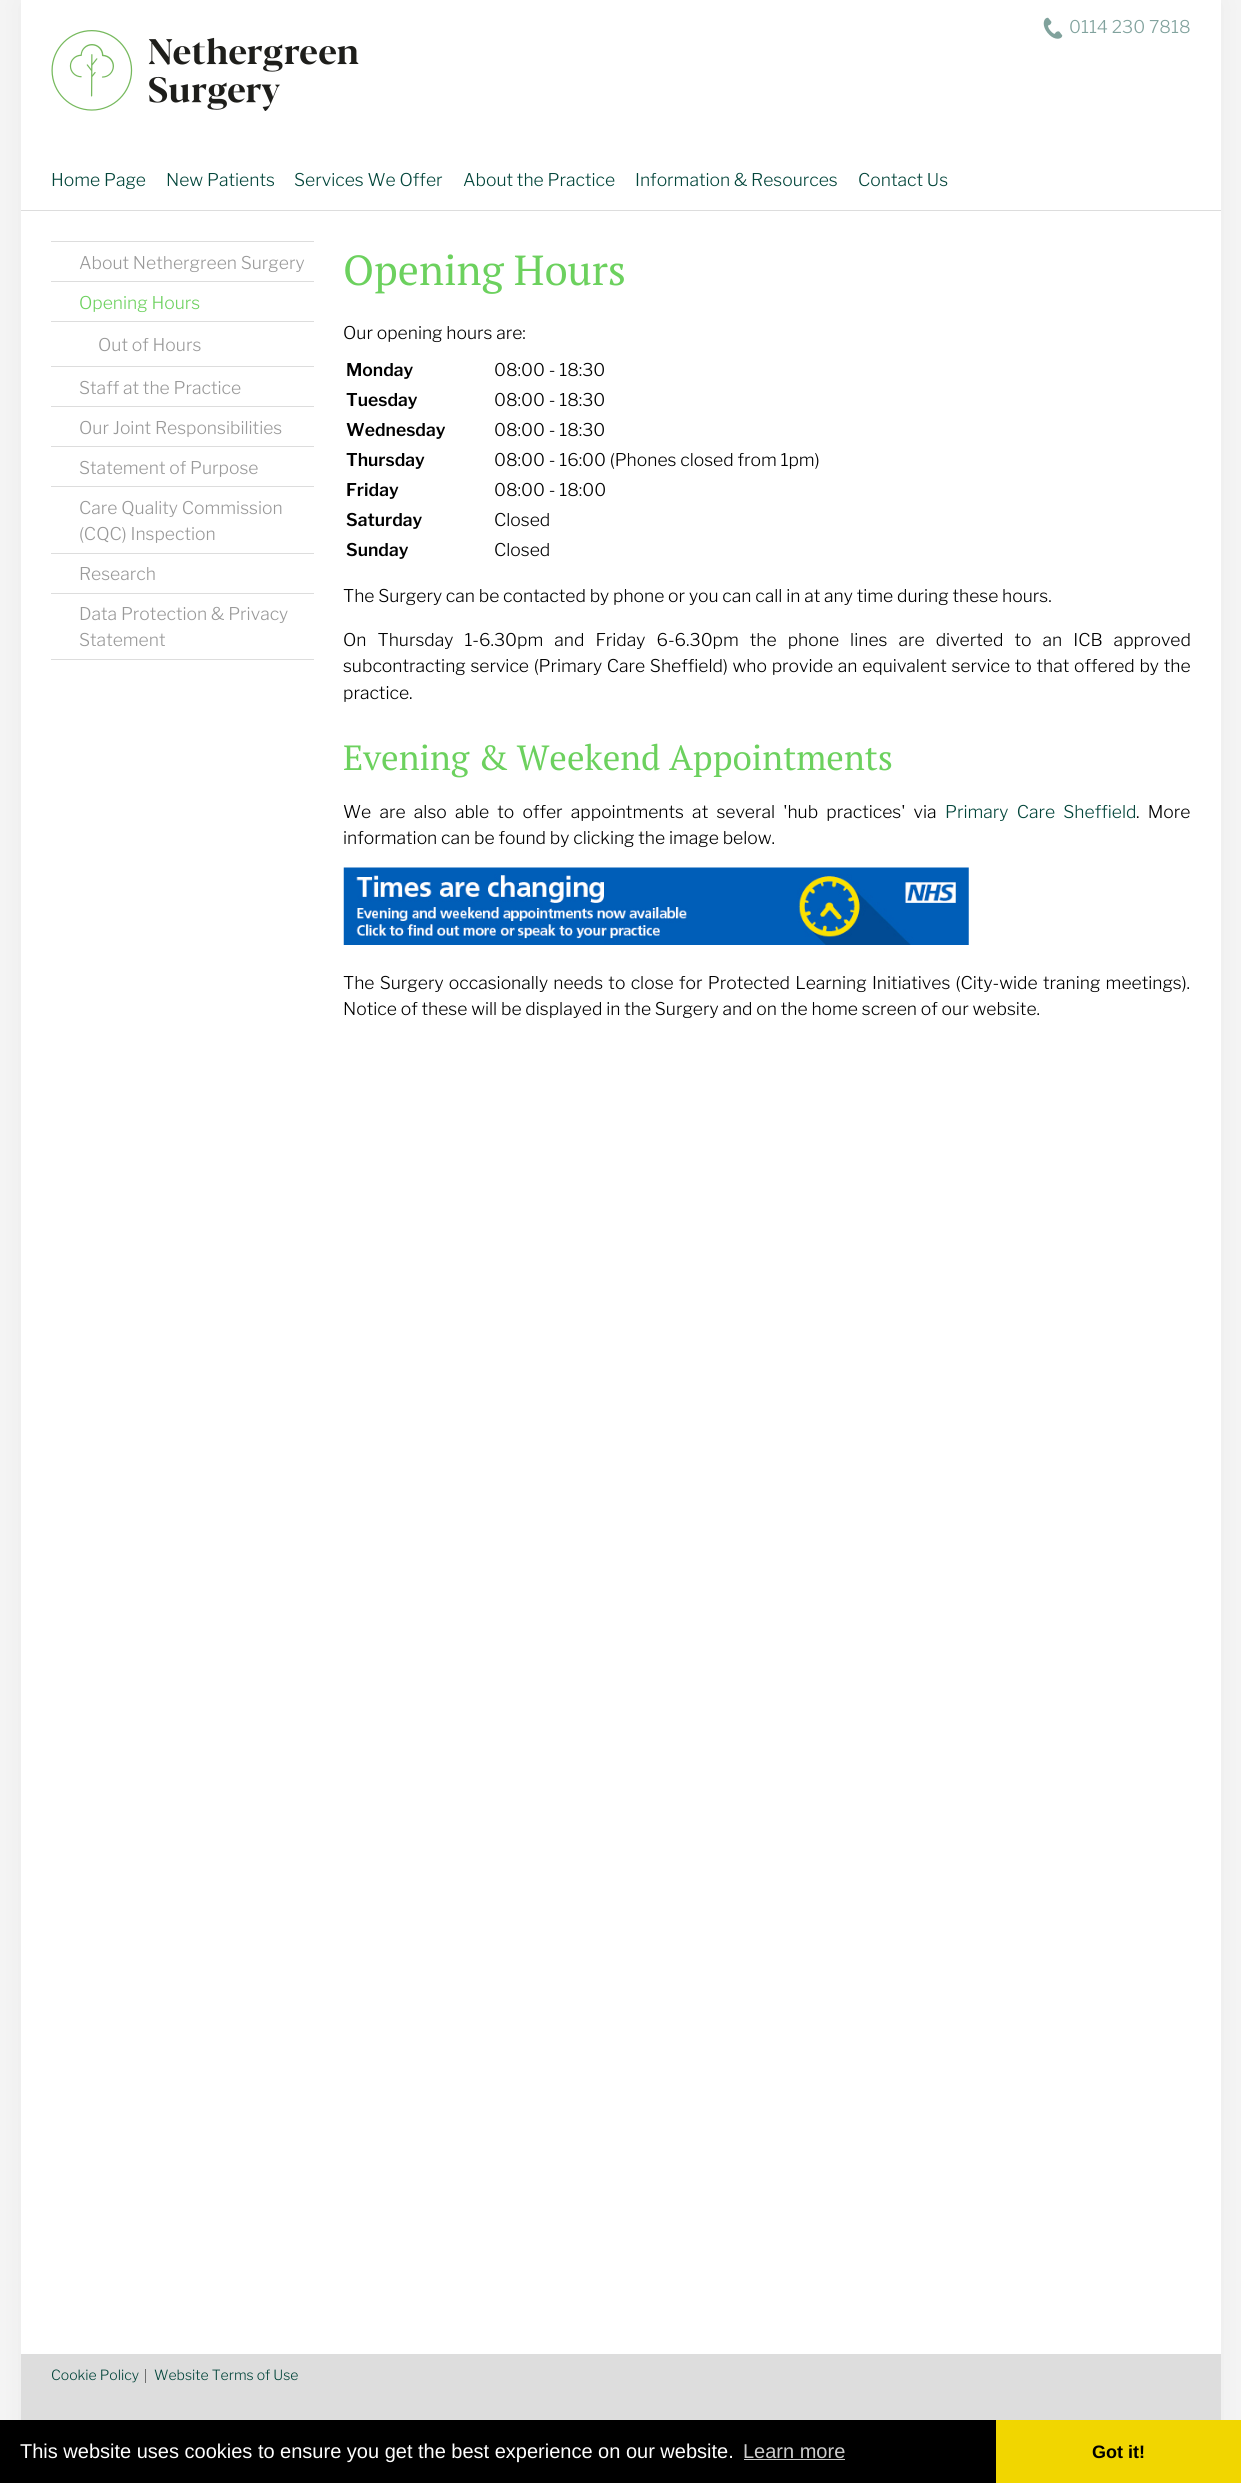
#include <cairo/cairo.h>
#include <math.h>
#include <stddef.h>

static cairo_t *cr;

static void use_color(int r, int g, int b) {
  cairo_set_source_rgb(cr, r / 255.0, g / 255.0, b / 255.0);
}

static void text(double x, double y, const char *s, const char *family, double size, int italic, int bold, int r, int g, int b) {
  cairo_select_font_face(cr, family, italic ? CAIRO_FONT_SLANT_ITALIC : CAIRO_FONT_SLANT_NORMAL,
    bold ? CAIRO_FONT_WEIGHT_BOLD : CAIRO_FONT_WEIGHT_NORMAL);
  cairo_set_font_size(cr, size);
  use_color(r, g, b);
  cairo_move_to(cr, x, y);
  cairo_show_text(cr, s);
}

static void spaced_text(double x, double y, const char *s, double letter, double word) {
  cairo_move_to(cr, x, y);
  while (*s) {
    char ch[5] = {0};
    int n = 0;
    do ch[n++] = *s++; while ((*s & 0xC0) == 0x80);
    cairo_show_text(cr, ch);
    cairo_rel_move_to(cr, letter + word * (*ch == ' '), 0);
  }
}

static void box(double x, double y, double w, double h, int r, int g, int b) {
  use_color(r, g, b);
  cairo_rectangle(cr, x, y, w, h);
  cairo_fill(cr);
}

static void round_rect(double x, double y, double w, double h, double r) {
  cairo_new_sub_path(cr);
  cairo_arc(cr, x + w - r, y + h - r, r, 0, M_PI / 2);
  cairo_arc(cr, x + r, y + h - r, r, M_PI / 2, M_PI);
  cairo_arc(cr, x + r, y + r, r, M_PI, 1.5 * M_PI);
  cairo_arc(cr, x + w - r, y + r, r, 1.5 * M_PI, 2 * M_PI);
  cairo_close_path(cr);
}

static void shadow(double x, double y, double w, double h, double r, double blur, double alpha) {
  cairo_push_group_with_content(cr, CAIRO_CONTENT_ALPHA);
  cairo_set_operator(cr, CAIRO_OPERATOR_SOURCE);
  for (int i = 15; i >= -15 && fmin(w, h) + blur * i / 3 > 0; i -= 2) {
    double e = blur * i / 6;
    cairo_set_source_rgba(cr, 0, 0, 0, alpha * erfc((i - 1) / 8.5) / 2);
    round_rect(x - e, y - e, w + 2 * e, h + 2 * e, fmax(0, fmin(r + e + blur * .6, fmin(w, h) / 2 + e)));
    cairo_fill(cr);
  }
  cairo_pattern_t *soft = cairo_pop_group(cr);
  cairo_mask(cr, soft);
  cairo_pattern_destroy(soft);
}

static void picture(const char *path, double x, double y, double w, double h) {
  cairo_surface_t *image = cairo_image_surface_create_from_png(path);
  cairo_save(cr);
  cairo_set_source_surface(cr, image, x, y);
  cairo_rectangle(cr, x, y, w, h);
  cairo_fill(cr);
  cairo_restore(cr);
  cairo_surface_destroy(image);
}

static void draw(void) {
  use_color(246, 246, 246);
  cairo_paint(cr);
  use_color(0, 0, 0);
  shadow(21, 0, 1200, 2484, 0, 19, 0.05);
  box(21, 0, 1200, 2354, 255, 255, 255);
  box(21, 210, 1200, 1, 221, 221, 221);
  picture("img_01.png", 1043, 17, 20, 22);
  picture("img_02.png", 51, 30, 308, 81);
  box(51, 659, 263, 1, 221, 221, 221);
  box(51, 241, 263, 1, 221, 221, 221);
  box(51, 281, 263, 1, 221, 221, 221);
  box(51, 321, 263, 1, 221, 221, 221);
  box(51, 366, 263, 1, 221, 221, 221);
  box(51, 406, 263, 1, 221, 221, 221);
  box(51, 446, 263, 1, 221, 221, 221);
  box(51, 486, 263, 1, 221, 221, 221);
  box(51, 553, 263, 1, 221, 221, 221);
  box(51, 593, 263, 1, 221, 221, 221);
  picture("img_03.png", 343, 867, 626, 78);
  box(21, 2354, 1200, 66, 221, 221, 221);
  box(145, 2369, 1, 14, 111, 111, 111);
  box(0, 2420, 996, 63, 0, 0, 0);
  box(744, 2459, 101, 1, 204, 204, 204);
  box(996, 2420, 245, 63, 241, 214, 0);
  text(1069, 33, "0114 230 7818", "Libre Franklin Light", 17.5, 0, 0, 129, 162, 157);
  text(51, 186, "Home Page", "Libre Franklin Light", 17.5, 0, 0, 2, 69, 58);
  text(166, 186, "New Patients", "Libre Franklin Light", 17.5, 0, 0, 2, 69, 58);
  text(294, 186, "Services We Offer", "Libre Franklin Light", 17.5, 0, 0, 2, 69, 58);
  text(463, 186, "About the Practice", "Libre Franklin Light", 17.5, 0, 0, 2, 69, 58);
  text(635, 186, "Information & Resources", "Libre Franklin Light", 17.5, 0, 0, 2, 69, 58);
  text(858, 186, "Contact Us", "Libre Franklin Light", 17.5, 0, 0, 2, 69, 58);
  text(79, 269, "About Nethergreen Surgery", "Libre Franklin Light", 17.5, 0, 0, 153, 153, 153);
  text(79, 309, "Opening Hours", "Libre Franklin Light", 17.5, 0, 0, 108, 209, 94);
  text(98, 351, "Out of Hours", "Libre Franklin Light", 17.5, 0, 0, 153, 153, 153);
  text(79, 394, "Staff at the Practice", "Libre Franklin Light", 17.5, 0, 0, 153, 153, 153);
  text(79, 434, "Our Joint Responsibilities", "Libre Franklin Light", 17.5, 0, 0, 153, 153, 153);
  text(79, 474, "Statement of Purpose", "Libre Franklin Light", 17.5, 0, 0, 153, 153, 153);
  text(79, 514, "Care Quality Commission", "Libre Franklin Light", 17.5, 0, 0, 153, 153, 153);
  text(79, 540, "(CQC) Inspection", "Libre Franklin Light", 17.5, 0, 0, 153, 153, 153);
  text(79, 580, "Research", "Libre Franklin Light", 17.5, 0, 0, 153, 153, 153);
  text(79, 620, "Data Protection & Privacy", "Libre Franklin Light", 17.5, 0, 0, 153, 153, 153);
  text(79, 646, "Statement", "Libre Franklin Light", 17.5, 0, 0, 153, 153, 153);
  text(343, 285, "Opening Hours", "PT Serif", 42, 0, 0, 108, 209, 94);
  text(343, 339, "Our opening hours are:", "Libre Franklin Light", 17.5, 0, 0, 0, 0, 0);
  text(346, 376, "Monday", "Libre Franklin SemiBold", 17.5, 0, 0, 0, 0, 0);
  text(494, 376, "08:00 - 18:30", "Libre Franklin Light", 17.5, 0, 0, 0, 0, 0);
  text(346, 406, "Tuesday", "Libre Franklin SemiBold", 17.5, 0, 0, 0, 0, 0);
  text(494, 406, "08:00 - 18:30", "Libre Franklin Light", 17.5, 0, 0, 0, 0, 0);
  text(346, 436, "Wednesday", "Libre Franklin SemiBold", 17.5, 0, 0, 0, 0, 0);
  text(494, 436, "08:00 - 18:30", "Libre Franklin Light", 17.5, 0, 0, 0, 0, 0);
  text(346, 466, "Thursday", "Libre Franklin SemiBold", 17.5, 0, 0, 0, 0, 0);
  text(494, 466, "08:00 - 16:00 (Phones closed from 1pm)", "Libre Franklin Light", 17.5, 0, 0, 0, 0, 0);
  text(346, 496, "Friday", "Libre Franklin SemiBold", 17.5, 0, 0, 0, 0, 0);
  text(494, 496, "08:00 - 18:00", "Libre Franklin Light", 17.5, 0, 0, 0, 0, 0);
  text(346, 526, "Saturday", "Libre Franklin SemiBold", 17.5, 0, 0, 0, 0, 0);
  text(494, 526, "Closed", "Libre Franklin Light", 17.5, 0, 0, 0, 0, 0);
  text(346, 556, "Sunday", "Libre Franklin SemiBold", 17.5, 0, 0, 0, 0, 0);
  text(494, 556, "Closed", "Libre Franklin Light", 17.5, 0, 0, 0, 0, 0);
  text(343, 602, "The Surgery can be contacted by phone or you can call in at any time during these hours.", "Libre Franklin Light", 17.5, 0, 0, 0, 0, 0);
  spaced_text(343, 646, "On Thursday 1-6.30pm and Friday 6-6.30pm the phone lines are diverted to an ICB approved", 0, 7.25);
  spaced_text(343, 672, "subcontracting service (Primary Care Sheffield) who provide an equivalent service to that offered by the", 0, 0.9);
  text(343, 699, "practice.", "Libre Franklin Light", 17.5, 0, 0, 0, 0, 0);
  text(343, 770, "Evening & Weekend Appointments", "PT Serif", 35, 0, 0, 108, 209, 94);
  cairo_select_font_face(cr, "Libre Franklin Light", CAIRO_FONT_SLANT_NORMAL, CAIRO_FONT_WEIGHT_NORMAL);
  cairo_set_font_size(cr, 17.5);
  use_color(0, 0, 0);
  spaced_text(343, 818, "We are also able to offer appointments at several 'hub practices' via", 0, 4.4);
  use_color(2, 69, 58);
  spaced_text(945, 818, "Primary Care Sheffield", 0, 4.4);
  use_color(0, 0, 0);
  spaced_text(1136, 818, ". More", 0, 4.4);
  text(343, 844, "information can be found by clicking the image below.", "Libre Franklin Light", 17.5, 0, 0, 0, 0, 0);
  spaced_text(343, 989, "The Surgery occasionally needs to close for Protected Learning Initiatives (City-wide traning meetings).", 0, 1.5);
  text(343, 1015, "Notice of these will be displayed in the Surgery and on the home screen of our website.", "Libre Franklin Light", 17.5, 0, 0, 0, 0, 0);
  text(51, 2380, "Cookie Policy", "Libre Franklin Light", 14, 0, 0, 2, 69, 58);
  text(154, 2380, "Website Terms of Use", "Libre Franklin Light", 14, 0, 0, 2, 69, 58);
  text(20, 2458, "This website uses cookies to ensure you get the best experience on our website.", "Liberation Sans", 20, 0, 0, 255, 255, 255);
  text(743, 2458, "Learn more", "Liberation Sans", 20, 0, 0, 204, 204, 204);
  text(1092, 2458, "Got it!", "Liberation Sans", 18, 0, 1, 0, 0, 0);
}

int main(void) {
  cairo_surface_t *surface = cairo_image_surface_create(CAIRO_FORMAT_RGB24, 1241, 2483);
  cr = cairo_create(surface);
  cairo_font_options_t *options = cairo_font_options_create();
  cairo_font_options_set_hint_metrics(options, CAIRO_HINT_METRICS_OFF);
  cairo_font_options_set_hint_style(options, CAIRO_HINT_STYLE_NONE);
  cairo_set_font_options(cr, options);
  cairo_set_miter_limit(cr, 4);
  draw();
  cairo_surface_write_to_png(surface, "out.png");
  cairo_font_options_destroy(options);
  cairo_destroy(cr);
  cairo_surface_destroy(surface);
  return 0;
}
